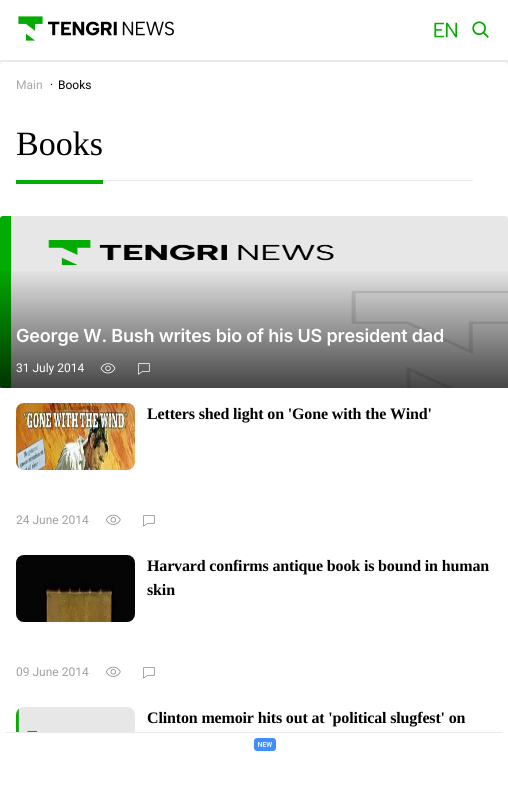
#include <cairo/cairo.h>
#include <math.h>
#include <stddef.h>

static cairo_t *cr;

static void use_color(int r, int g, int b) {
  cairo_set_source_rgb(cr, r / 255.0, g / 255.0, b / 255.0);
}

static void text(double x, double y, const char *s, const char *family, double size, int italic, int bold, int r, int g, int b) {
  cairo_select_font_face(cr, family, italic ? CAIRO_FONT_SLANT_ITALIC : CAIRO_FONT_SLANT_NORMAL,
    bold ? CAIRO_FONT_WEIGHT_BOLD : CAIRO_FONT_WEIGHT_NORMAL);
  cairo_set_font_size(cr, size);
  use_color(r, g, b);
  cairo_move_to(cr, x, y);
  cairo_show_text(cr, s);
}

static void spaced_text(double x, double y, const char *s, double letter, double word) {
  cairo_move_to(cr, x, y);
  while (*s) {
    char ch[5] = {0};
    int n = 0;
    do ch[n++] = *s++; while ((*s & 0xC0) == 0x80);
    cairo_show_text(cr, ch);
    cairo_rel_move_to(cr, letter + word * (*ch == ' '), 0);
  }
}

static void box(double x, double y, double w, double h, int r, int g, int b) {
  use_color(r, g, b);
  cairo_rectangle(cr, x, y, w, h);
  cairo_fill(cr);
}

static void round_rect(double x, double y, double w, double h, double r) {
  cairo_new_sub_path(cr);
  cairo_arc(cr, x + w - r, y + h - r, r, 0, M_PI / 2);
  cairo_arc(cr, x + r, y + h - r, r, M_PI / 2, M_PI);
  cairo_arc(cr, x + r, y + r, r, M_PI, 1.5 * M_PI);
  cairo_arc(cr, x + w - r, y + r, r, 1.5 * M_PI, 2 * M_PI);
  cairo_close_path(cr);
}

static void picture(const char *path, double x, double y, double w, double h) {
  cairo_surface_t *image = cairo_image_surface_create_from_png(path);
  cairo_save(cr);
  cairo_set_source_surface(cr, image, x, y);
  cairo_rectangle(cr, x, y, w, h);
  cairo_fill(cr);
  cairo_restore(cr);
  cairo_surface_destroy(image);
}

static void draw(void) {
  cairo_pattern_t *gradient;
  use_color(241, 242, 241);
  cairo_paint(cr);
  box(0, 0, 508, 60, 255, 255, 255);
  box(0, 60, 508, 2, 234, 234, 236);
  picture("img_01.png", 18, 16, 156, 25);
  picture("img_02.png", 434, 22, 24, 16);
  picture("img_03.png", 472, 21, 17, 17);
  use_color(255, 255, 255);
  cairo_new_path(cr);
  cairo_move_to(cr, 4, 62);
  cairo_line_to(cr, 504, 62);
  cairo_curve_to(cr, 506, 62, 508, 64, 508, 66);
  cairo_line_to(cr, 508, 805);
  cairo_line_to(cr, 0, 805);
  cairo_line_to(cr, 0, 66);
  cairo_curve_to(cr, 0, 64, 2, 62, 4, 62);
  cairo_close_path(cr);
  cairo_fill(cr);
  box(16, 180, 87, 4, 3, 171, 2);
  box(103, 180, 370, 1, 234, 234, 236);
  picture("img_04.png", 0, 216, 508, 172);
  gradient = cairo_pattern_create_linear(254, 216, 254, 388);
  cairo_pattern_add_color_stop_rgba(gradient, 0.3, 0, 0, 0, 0);
  cairo_pattern_add_color_stop_rgba(gradient, 1, 0, 0, 0, 0.7);
  cairo_set_source(cr, gradient);
  cairo_pattern_destroy(gradient);
  cairo_rectangle(cr, 0, 271, 508, 117);
  cairo_fill(cr);
  picture("img_05.png", 100, 363, 16, 11);
  picture("img_06.png", 138, 363, 12, 12);
  picture("img_07.png", 16, 403, 119, 67);
  picture("img_08.png", 106, 514, 15, 11);
  picture("img_09.png", 143, 515, 12, 12);
  picture("img_10.png", 16, 555, 119, 67);
  picture("img_08.png", 106, 666, 15, 11);
  picture("img_09.png", 143, 667, 12, 12);
  picture("img_11.png", 16, 707, 119, 25);
  box(6, 732, 496, 1, 234, 234, 236);
  use_color(63, 142, 252);
  round_rect(254, 738, 22, 13, 3);
  cairo_fill(cr);
  picture("img_12.png", 258, 742, 14, 5);
  text(16, 89, "Main", "Roboto", 12, 0, 0, 165, 167, 171);
  text(50, 85, ".", "Roboto", 12, 0, 0, 0, 0, 0);
  text(58, 89, "Books", "Roboto", 12, 0, 0, 0, 0, 0);
  text(16, 155, "Books", "Liberation Serif", 34, 0, 0, 0, 0, 0);
  cairo_select_font_face(cr, "Inter SemiBold", CAIRO_FONT_SLANT_NORMAL, CAIRO_FONT_WEIGHT_NORMAL);
  cairo_set_font_size(cr, 18);
  use_color(255, 255, 255);
  spaced_text(16, 342, "George W. Bush writes bio of his US president dad", -0.2, 0);
  text(16, 372, "31 July 2014", "Roboto", 12, 0, 0, 255, 255, 255);
  cairo_select_font_face(cr, "Liberation Serif", CAIRO_FONT_SLANT_NORMAL, CAIRO_FONT_WEIGHT_BOLD);
  cairo_set_font_size(cr, 16);
  use_color(0, 0, 0);
  spaced_text(147, 419, "Letters shed light on 'Gone with the Wind'", -0.15, 0);
  text(16, 524, "24 June 2014", "Roboto", 12, 0, 0, 159, 161, 166);
  cairo_select_font_face(cr, "Liberation Serif", CAIRO_FONT_SLANT_NORMAL, CAIRO_FONT_WEIGHT_BOLD);
  cairo_set_font_size(cr, 16);
  use_color(0, 0, 0);
  spaced_text(147, 571, "Harvard confirms antique book is bound in human", -0.15, 0);
  spaced_text(147, 595, "skin", -0.15, 0);
  text(16, 676, "09 June 2014", "Roboto", 12, 0, 0, 159, 161, 166);
  cairo_select_font_face(cr, "Liberation Serif", CAIRO_FONT_SLANT_NORMAL, CAIRO_FONT_WEIGHT_BOLD);
  cairo_set_font_size(cr, 16);
  use_color(0, 0, 0);
  spaced_text(147, 723, "Clinton memoir hits out at 'political slugfest' on", -0.15, 0);
}

int main(void) {
  cairo_surface_t *surface = cairo_image_surface_create(CAIRO_FORMAT_RGB24, 508, 801);
  cr = cairo_create(surface);
  cairo_font_options_t *options = cairo_font_options_create();
  cairo_font_options_set_hint_metrics(options, CAIRO_HINT_METRICS_OFF);
  cairo_font_options_set_hint_style(options, CAIRO_HINT_STYLE_NONE);
  cairo_set_font_options(cr, options);
  cairo_set_miter_limit(cr, 4);
  draw();
  cairo_surface_write_to_png(surface, "out.png");
  cairo_font_options_destroy(options);
  cairo_destroy(cr);
  cairo_surface_destroy(surface);
  return 0;
}
